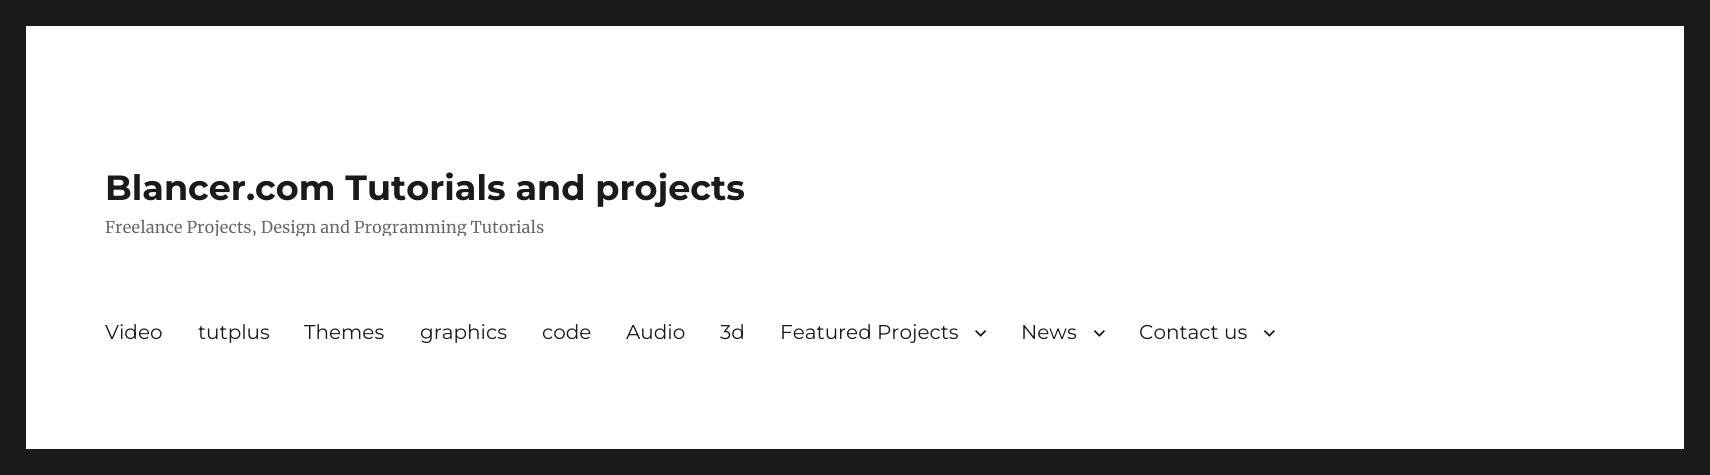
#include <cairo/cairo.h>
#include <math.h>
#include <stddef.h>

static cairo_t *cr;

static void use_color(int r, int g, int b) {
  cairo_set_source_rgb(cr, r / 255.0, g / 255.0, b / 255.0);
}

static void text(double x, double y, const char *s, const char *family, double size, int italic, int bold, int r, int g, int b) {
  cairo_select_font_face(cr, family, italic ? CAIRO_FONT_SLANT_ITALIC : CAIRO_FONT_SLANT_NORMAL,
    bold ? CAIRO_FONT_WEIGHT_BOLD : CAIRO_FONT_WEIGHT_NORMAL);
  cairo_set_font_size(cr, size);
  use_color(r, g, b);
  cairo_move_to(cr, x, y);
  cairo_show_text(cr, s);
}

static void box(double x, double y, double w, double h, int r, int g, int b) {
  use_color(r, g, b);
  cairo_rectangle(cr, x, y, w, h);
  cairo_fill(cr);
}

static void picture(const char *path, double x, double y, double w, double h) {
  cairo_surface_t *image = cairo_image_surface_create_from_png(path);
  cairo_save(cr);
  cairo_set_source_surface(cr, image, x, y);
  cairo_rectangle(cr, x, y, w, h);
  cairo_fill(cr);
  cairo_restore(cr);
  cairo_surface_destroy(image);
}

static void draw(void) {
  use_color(26, 26, 26);
  cairo_paint(cr);
  box(26, 26, 1658, 423, 255, 255, 255);
  picture("img_01.png", 975, 330, 12, 7);
  picture("img_02.png", 1093, 330, 12, 7);
  picture("img_02.png", 1263, 330, 12, 7);
  text(105, 200, "Blancer.com Tutorials and projects", "Montserrat Thin", 35, 0, 0, 26, 26, 26);
  cairo_save(cr);
  cairo_rectangle(cr, 105, 166, 640, 70);
  cairo_clip(cr);
  text(105, 233, "Freelance Projects, Design and Programming Tutorials", "Merriweather", 16.25, 0, 0, 104, 104, 104);
  cairo_restore(cr);
  text(105, 339, "Video", "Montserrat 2 Thin", 20, 0, 0, 26, 26, 26);
  text(198, 339, "tutplus", "Montserrat 2 Thin", 20, 0, 0, 26, 26, 26);
  text(304, 339, "Themes", "Montserrat 2 Thin", 20, 0, 0, 26, 26, 26);
  text(420, 339, "graphics", "Montserrat 2 Thin", 20, 0, 0, 26, 26, 26);
  text(542, 339, "code", "Montserrat 2 Thin", 20, 0, 0, 26, 26, 26);
  text(626, 339, "Audio", "Montserrat 2 Thin", 20, 0, 0, 26, 26, 26);
  text(720, 339, "3d", "Montserrat 2 Thin", 20, 0, 0, 26, 26, 26);
  text(780, 339, "Featured Projects", "Montserrat 2 Thin", 20, 0, 0, 26, 26, 26);
  text(1021, 339, "News", "Montserrat 2 Thin", 20, 0, 0, 26, 26, 26);
  text(1139, 339, "Contact us", "Montserrat 2 Thin", 20, 0, 0, 26, 26, 26);
}

int main(void) {
  cairo_surface_t *surface = cairo_image_surface_create(CAIRO_FORMAT_RGB24, 1710, 475);
  cr = cairo_create(surface);
  cairo_font_options_t *options = cairo_font_options_create();
  cairo_font_options_set_hint_metrics(options, CAIRO_HINT_METRICS_OFF);
  cairo_font_options_set_hint_style(options, CAIRO_HINT_STYLE_NONE);
  cairo_set_font_options(cr, options);
  cairo_set_miter_limit(cr, 4);
  draw();
  cairo_surface_write_to_png(surface, "out.png");
  cairo_font_options_destroy(options);
  cairo_destroy(cr);
  cairo_surface_destroy(surface);
  return 0;
}
